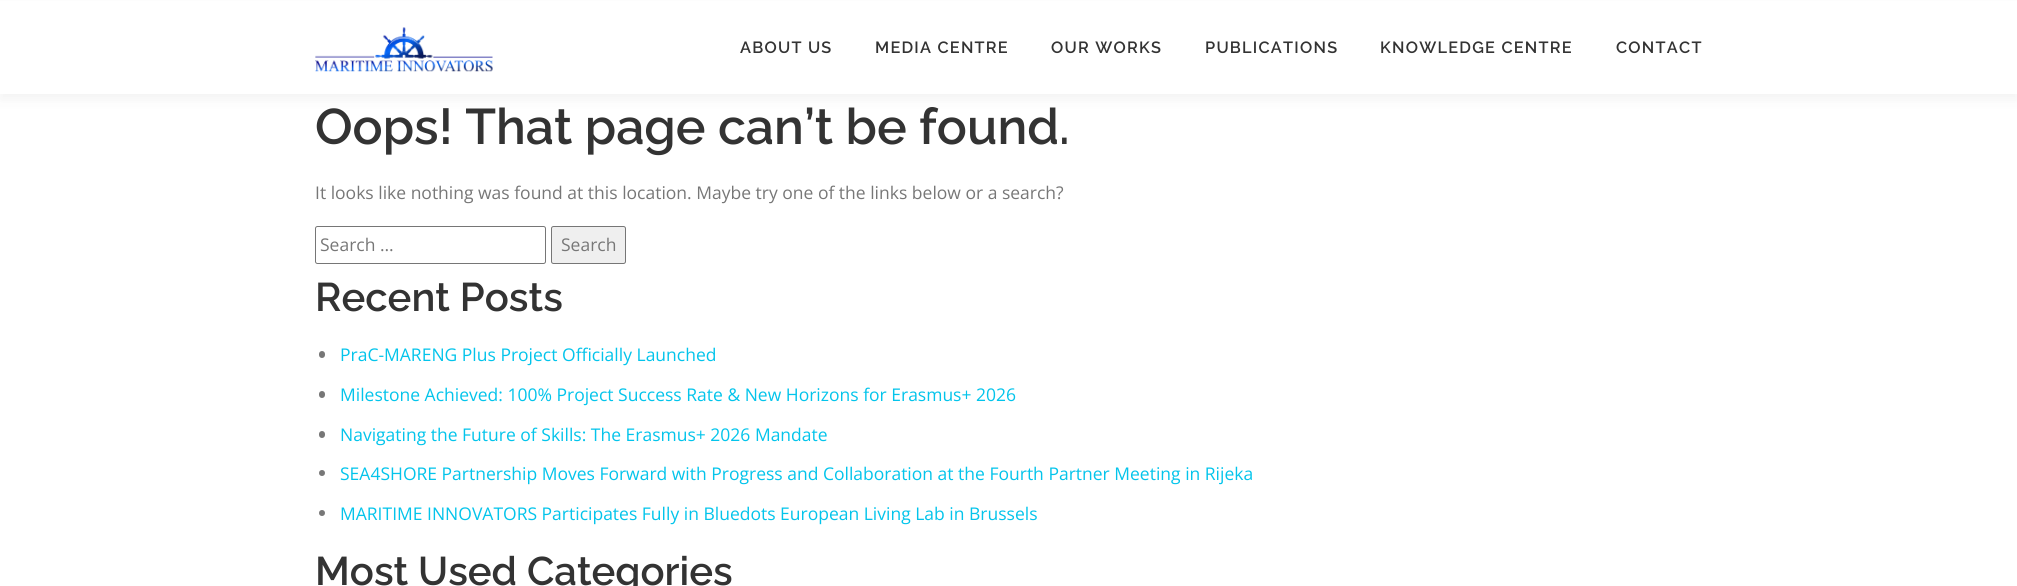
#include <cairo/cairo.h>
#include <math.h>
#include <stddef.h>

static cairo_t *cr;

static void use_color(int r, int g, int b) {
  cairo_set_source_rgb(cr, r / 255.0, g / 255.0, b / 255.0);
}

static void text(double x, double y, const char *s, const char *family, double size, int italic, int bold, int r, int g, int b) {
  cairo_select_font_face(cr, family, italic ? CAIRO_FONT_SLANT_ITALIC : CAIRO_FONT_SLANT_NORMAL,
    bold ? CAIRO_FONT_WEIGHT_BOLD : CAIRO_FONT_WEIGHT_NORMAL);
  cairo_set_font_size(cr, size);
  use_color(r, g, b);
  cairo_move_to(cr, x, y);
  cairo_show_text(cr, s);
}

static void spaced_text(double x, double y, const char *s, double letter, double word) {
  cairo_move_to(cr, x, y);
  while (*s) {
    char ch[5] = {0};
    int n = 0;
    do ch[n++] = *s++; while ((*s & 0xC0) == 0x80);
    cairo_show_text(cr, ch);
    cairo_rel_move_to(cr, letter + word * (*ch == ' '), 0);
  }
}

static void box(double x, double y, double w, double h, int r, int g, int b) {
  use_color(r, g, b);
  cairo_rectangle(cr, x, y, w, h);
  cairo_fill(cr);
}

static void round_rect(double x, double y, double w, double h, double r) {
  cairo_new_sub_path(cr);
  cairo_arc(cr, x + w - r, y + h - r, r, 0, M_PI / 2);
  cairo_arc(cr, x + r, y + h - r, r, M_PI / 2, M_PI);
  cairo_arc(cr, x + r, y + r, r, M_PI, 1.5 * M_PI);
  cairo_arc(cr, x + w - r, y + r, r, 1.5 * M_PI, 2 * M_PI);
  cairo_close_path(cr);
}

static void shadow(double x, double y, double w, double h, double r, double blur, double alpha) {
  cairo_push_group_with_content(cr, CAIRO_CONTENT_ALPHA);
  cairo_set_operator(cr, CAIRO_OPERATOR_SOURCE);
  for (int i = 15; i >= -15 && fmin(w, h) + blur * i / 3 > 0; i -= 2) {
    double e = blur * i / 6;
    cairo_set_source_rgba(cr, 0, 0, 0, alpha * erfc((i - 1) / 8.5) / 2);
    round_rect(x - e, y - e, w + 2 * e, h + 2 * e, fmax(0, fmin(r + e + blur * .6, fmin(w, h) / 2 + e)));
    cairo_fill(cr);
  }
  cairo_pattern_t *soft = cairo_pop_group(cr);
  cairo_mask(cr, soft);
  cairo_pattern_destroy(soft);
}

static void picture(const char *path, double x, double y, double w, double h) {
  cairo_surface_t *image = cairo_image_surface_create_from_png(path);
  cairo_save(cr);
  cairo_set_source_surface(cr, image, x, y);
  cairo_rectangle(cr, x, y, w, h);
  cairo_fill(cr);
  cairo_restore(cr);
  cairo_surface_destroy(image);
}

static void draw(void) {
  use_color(255, 255, 255);
  cairo_paint(cr);
  use_color(50, 50, 50);
  shadow(0, 6, 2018, 94, 0, 6, 0.06);
  box(0, 1, 2017, 93, 255, 255, 255);
  picture("img_01.png", 315, 27, 178, 45);
  round_rect(315.5, 226.5, 230, 37, 2);
  use_color(118, 118, 118);
  cairo_set_line_width(cr, 1);
  cairo_stroke(cr);
  use_color(239, 239, 239);
  round_rect(551.5, 226.5, 74, 37, 2);
  cairo_fill_preserve(cr);
  use_color(118, 118, 118);
  cairo_stroke(cr);
  use_color(119, 119, 119);
  round_rect(319, 351, 6, 7, 3);
  cairo_fill(cr);
  round_rect(319, 391, 6, 7, 3);
  cairo_fill(cr);
  round_rect(319, 431, 6, 7, 3);
  cairo_fill(cr);
  cairo_arc(cr, 322, 473, 3, 0, 2 * M_PI);
  cairo_fill(cr);
  cairo_arc(cr, 322, 513, 3, 0, 2 * M_PI);
  cairo_fill(cr);
  cairo_select_font_face(cr, "Raleway SemiBold", CAIRO_FONT_SLANT_NORMAL, CAIRO_FONT_WEIGHT_NORMAL);
  cairo_set_font_size(cr, 16.25);
  use_color(51, 51, 51);
  spaced_text(740, 53, "ABOUT US", 1.25, 0);
  spaced_text(875, 53, "MEDIA CENTRE", 1.25, 0);
  spaced_text(1051, 53, "OUR WORKS", 1.25, 0);
  spaced_text(1205, 53, "PUBLICATIONS", 1.25, 0);
  spaced_text(1380, 53, "KNOWLEDGE CENTRE", 1.25, 0);
  spaced_text(1616, 53, "CONTACT", 1.25, 0);
  text(315, 144, "Oops! That page can’t be found.", "Raleway SemiBold", 50, 0, 0, 51, 51, 51);
  text(315, 199, "It looks like nothing was found at this location. Maybe try one of the links below or a search?", "Open Sans", 17.5, 0, 0, 119, 119, 119);
  text(320, 251, "Search …", "Open Sans", 17.5, 0, 0, 119, 119, 119);
  text(561, 251, "Search", "Open Sans", 17.5, 0, 0, 119, 119, 119);
  text(315, 311, "Recent Posts", "Raleway SemiBold", 40, 0, 0, 51, 51, 51);
  text(340, 361, "PraC-MARENG Plus Project Officially Launched", "Open Sans", 17.5, 0, 0, 3, 196, 235);
  text(340, 401, "Milestone Achieved: 100% Project Success Rate & New Horizons for Erasmus+ 2026", "Open Sans", 17.5, 0, 0, 3, 196, 235);
  text(340, 441, "Navigating the Future of Skills: The Erasmus+ 2026 Mandate", "Open Sans", 17.5, 0, 0, 3, 196, 235);
  text(340, 480, "SEA4SHORE Partnership Moves Forward with Progress and Collaboration at the Fourth Partner Meeting in Rijeka", "Open Sans", 17.5, 0, 0, 3, 196, 235);
  text(340, 520, "MARITIME INNOVATORS Participates Fully in Bluedots European Living Lab in Brussels", "Open Sans", 17.5, 0, 0, 3, 196, 235);
  text(315, 585, "Most Used Categories", "Raleway SemiBold", 40, 0, 0, 51, 51, 51);
}

int main(void) {
  cairo_surface_t *surface = cairo_image_surface_create(CAIRO_FORMAT_RGB24, 2017, 586);
  cr = cairo_create(surface);
  cairo_font_options_t *options = cairo_font_options_create();
  cairo_font_options_set_hint_metrics(options, CAIRO_HINT_METRICS_OFF);
  cairo_font_options_set_hint_style(options, CAIRO_HINT_STYLE_NONE);
  cairo_set_font_options(cr, options);
  cairo_set_miter_limit(cr, 4);
  draw();
  cairo_surface_write_to_png(surface, "out.png");
  cairo_font_options_destroy(options);
  cairo_destroy(cr);
  cairo_surface_destroy(surface);
  return 0;
}
